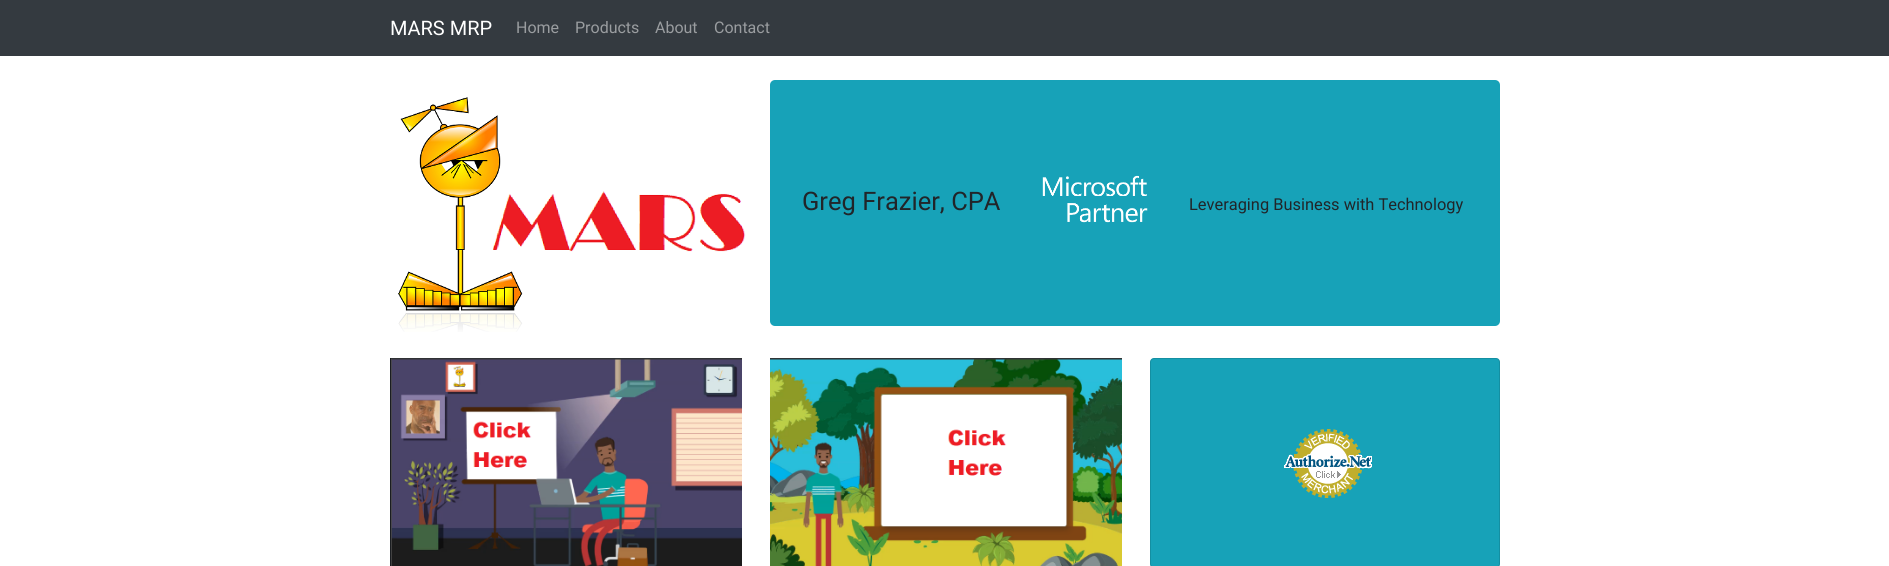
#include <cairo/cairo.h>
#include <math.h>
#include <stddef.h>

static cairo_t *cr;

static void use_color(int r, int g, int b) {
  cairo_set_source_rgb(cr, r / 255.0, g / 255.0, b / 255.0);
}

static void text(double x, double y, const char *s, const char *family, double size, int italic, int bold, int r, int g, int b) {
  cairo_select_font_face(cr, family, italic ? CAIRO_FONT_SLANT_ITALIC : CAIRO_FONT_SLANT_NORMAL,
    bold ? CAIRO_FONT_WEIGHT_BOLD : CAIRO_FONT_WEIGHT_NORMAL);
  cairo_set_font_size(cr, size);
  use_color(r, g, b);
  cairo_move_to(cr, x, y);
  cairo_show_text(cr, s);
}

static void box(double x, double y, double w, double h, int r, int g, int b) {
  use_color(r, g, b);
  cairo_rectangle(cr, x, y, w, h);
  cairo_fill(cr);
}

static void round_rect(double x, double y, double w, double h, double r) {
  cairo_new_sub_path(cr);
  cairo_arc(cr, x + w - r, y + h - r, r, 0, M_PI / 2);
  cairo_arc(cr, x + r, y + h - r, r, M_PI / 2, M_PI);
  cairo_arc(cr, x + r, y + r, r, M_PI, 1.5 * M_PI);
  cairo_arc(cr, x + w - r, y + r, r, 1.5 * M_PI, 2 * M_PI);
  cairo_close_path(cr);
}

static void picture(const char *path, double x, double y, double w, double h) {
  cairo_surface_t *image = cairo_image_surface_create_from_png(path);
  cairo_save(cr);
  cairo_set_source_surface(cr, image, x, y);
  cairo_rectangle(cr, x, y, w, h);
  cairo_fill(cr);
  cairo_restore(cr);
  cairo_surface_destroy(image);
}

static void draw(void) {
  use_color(255, 255, 255);
  cairo_paint(cr);
  box(0, 0, 1889, 56, 52, 58, 64);
  picture("img_01.png", 398, 97, 348, 235);
  use_color(23, 162, 184);
  round_rect(770, 80, 730, 246, 5);
  cairo_fill(cr);
  picture("img_02.png", 1042, 175, 106, 48);
  picture("img_03.png", 390, 358, 352, 208);
  picture("img_04.png", 770, 358, 352, 208);
  round_rect(1150, 358, 350, 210, 4);
  cairo_fill(cr);
  round_rect(1150.5, 358.5, 349, 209, 3.5);
  cairo_set_source_rgba(cr, 0, 0, 0, 0.12);
  cairo_set_line_width(cr, 1);
  cairo_stroke(cr);
  picture("img_05.png", 1284, 429, 88, 69);
  text(390, 35, "MARS MRP", "Roboto", 20, 0, 0, 255, 255, 255);
  text(516, 33, "Home", "Roboto", 16, 0, 0, 154, 157, 160);
  text(575, 33, "Products", "Roboto", 16, 0, 0, 154, 157, 160);
  text(655, 33, "About", "Roboto", 16, 0, 0, 154, 157, 160);
  text(714, 33, "Contact", "Roboto", 16, 0, 0, 154, 157, 160);
  text(802, 210, "Greg Frazier, CPA", "Roboto", 25.5, 0, 0, 33, 37, 41);
  text(1189, 210, "Leveraging Business with Technology", "Roboto", 16.4, 0, 0, 33, 37, 41);
}

int main(void) {
  cairo_surface_t *surface = cairo_image_surface_create(CAIRO_FORMAT_RGB24, 1889, 566);
  cr = cairo_create(surface);
  cairo_font_options_t *options = cairo_font_options_create();
  cairo_font_options_set_hint_metrics(options, CAIRO_HINT_METRICS_OFF);
  cairo_font_options_set_hint_style(options, CAIRO_HINT_STYLE_NONE);
  cairo_set_font_options(cr, options);
  cairo_set_miter_limit(cr, 4);
  draw();
  cairo_surface_write_to_png(surface, "out.png");
  cairo_font_options_destroy(options);
  cairo_destroy(cr);
  cairo_surface_destroy(surface);
  return 0;
}
